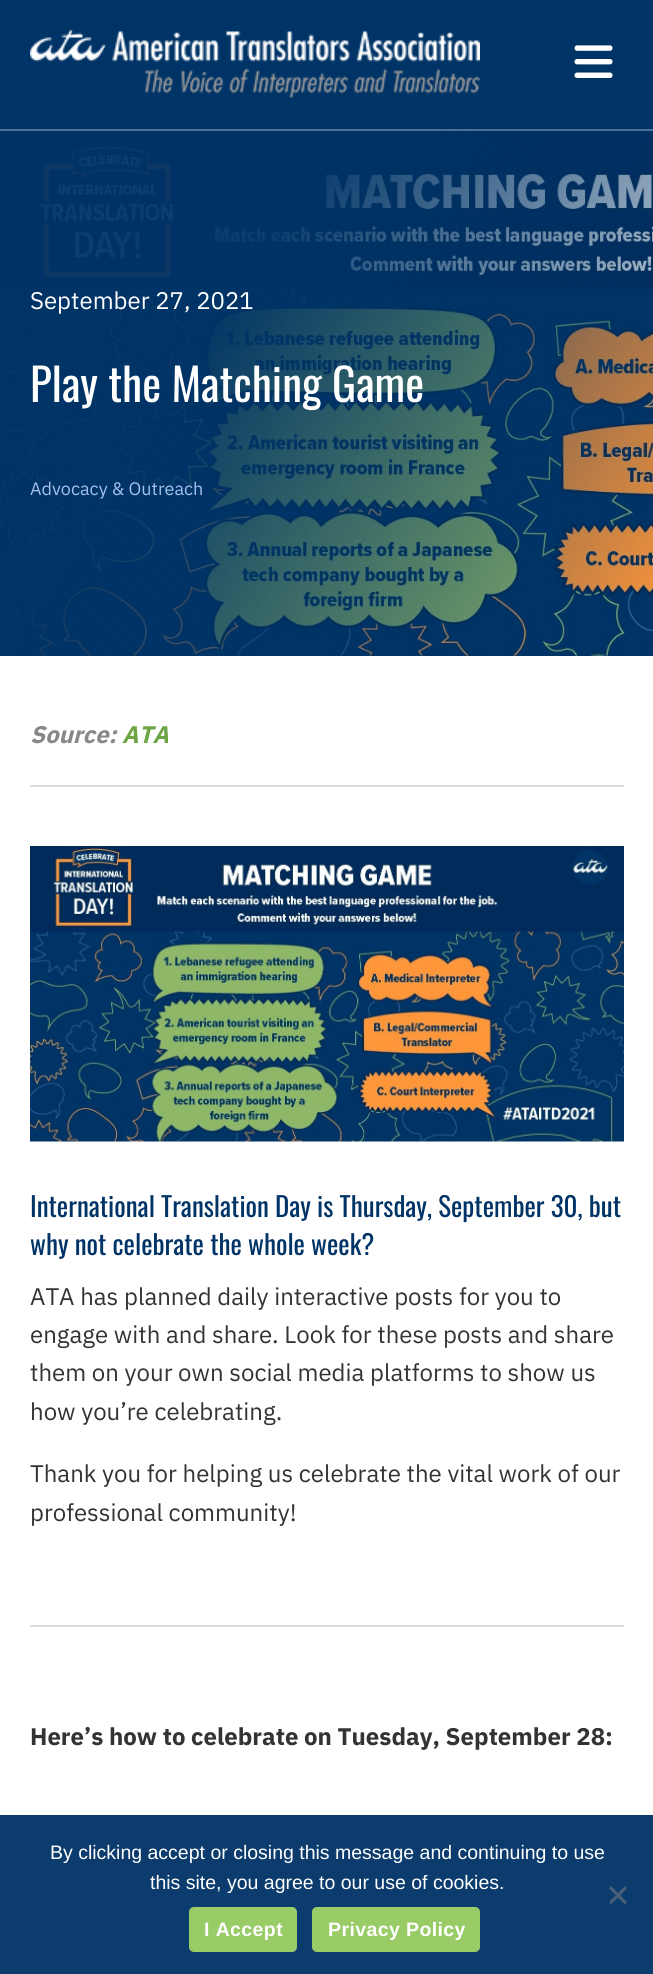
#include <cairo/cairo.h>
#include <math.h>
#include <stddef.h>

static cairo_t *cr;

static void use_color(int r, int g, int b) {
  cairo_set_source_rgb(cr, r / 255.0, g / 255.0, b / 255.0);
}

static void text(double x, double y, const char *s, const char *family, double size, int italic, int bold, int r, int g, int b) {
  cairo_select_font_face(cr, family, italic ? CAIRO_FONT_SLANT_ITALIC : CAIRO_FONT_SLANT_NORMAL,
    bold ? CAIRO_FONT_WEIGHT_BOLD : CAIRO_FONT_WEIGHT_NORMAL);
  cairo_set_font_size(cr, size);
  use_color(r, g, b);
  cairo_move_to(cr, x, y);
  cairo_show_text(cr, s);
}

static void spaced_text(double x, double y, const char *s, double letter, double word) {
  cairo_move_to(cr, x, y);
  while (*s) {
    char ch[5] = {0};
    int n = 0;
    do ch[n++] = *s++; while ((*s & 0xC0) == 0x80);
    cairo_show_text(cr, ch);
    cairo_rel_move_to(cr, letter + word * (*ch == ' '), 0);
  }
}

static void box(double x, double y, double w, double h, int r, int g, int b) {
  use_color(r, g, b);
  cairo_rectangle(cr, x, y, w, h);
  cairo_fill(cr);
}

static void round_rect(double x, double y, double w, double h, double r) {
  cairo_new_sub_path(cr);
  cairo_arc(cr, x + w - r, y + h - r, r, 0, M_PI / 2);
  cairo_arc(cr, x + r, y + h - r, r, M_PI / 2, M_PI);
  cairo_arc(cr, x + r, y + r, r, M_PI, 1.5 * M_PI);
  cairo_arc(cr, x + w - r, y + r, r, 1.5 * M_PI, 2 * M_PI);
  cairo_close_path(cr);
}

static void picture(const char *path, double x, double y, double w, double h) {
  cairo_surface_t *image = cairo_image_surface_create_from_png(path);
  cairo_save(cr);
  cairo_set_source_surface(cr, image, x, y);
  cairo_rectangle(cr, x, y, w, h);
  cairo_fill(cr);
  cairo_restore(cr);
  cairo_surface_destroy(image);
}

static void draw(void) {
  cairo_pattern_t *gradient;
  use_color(255, 255, 255);
  cairo_paint(cr);
  box(0, 0, 653, 129, 0, 51, 102);
  box(0, 129, 653, 2, 77, 112, 148);
  picture("img_01.png", 30, 30, 450, 68);
  picture("img_02.png", 574, 45, 39, 33);
  box(0, 655, 653, 1, 0, 51, 102);
  picture("img_03.png", 0, 131, 653, 525);
  gradient = cairo_pattern_create_linear(-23, 166, 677, 620);
  cairo_pattern_add_color_stop_rgba(gradient, 0.35, 0, 0.2, 0.4, 0.95);
  cairo_pattern_add_color_stop_rgba(gradient, 1, 0, 0.2, 0.4, 0);
  cairo_set_source(cr, gradient);
  cairo_pattern_destroy(gradient);
  cairo_rectangle(cr, 0, 131, 653, 525);
  cairo_fill(cr);
  box(30, 785, 594, 2, 221, 221, 221);
  picture("img_04.png", 30, 846, 594, 296);
  box(30, 1625, 594, 2, 221, 221, 221);
  cairo_set_source_rgba(cr, 0, 0.2, 0.4, 0.95);
  cairo_rectangle(cr, 0, 1815, 653, 159);
  cairo_fill(cr);
  use_color(70, 95, 119);
  cairo_new_path(cr);
  cairo_move_to(cr, 625, 1886);
  cairo_line_to(cr, 627, 1888.5);
  cairo_line_to(cr, 611, 1904.5);
  cairo_line_to(cr, 609, 1902);
  cairo_close_path(cr);
  cairo_fill(cr);
  cairo_new_path(cr);
  cairo_move_to(cr, 609, 1888.5);
  cairo_line_to(cr, 611, 1886);
  cairo_line_to(cr, 627, 1902);
  cairo_line_to(cr, 625, 1904.5);
  cairo_close_path(cr);
  cairo_fill(cr);
  use_color(153, 204, 102);
  round_rect(189, 1907, 108, 45, 5);
  cairo_fill(cr);
  round_rect(312, 1907, 168, 45, 5);
  cairo_fill(cr);
  text(30, 309, "September 27, 2021", "IBM Plex Sans", 24, 0, 0, 255, 255, 255);
  text(30, 402, "Play the Matching Game", "Oswald", 45, 0, 0, 255, 255, 255);
  text(30, 495, "Advocacy & Outreach", "IBM Plex Sans", 18, 0, 0, 164, 193, 237);
  text(30, 743, "Source:", "IBM Plex Sans", 24, 1, 1, 136, 136, 136);
  text(122, 743, "ATA", "IBM Plex Sans", 24, 1, 1, 109, 165, 69);
  text(30, 1217, "International Translation Day is Thursday, September 30, but", "Oswald", 27, 0, 0, 0, 51, 102);
  text(30, 1255, "why not celebrate the whole week?", "Oswald", 27, 0, 0, 0, 51, 102);
  text(30, 1305, "ATA has planned daily interactive posts for you to", "IBM Plex Sans", 24, 0, 0, 51, 51, 51);
  text(30, 1343, "engage with and share. Look for these posts and share", "IBM Plex Sans", 24, 0, 0, 51, 51, 51);
  text(30, 1381, "them on your own social media platforms to show us", "IBM Plex Sans", 24, 0, 0, 51, 51, 51);
  text(30, 1420, "how you’re celebrating.", "IBM Plex Sans", 24, 0, 0, 51, 51, 51);
  text(30, 1482, "Thank you for helping us celebrate the vital work of our", "IBM Plex Sans", 24, 0, 0, 51, 51, 51);
  text(30, 1521, "professional community!", "IBM Plex Sans", 24, 0, 0, 51, 51, 51);
  text(30, 1745, "Here’s how to celebrate on Tuesday, September 28:", "IBM Plex Sans", 24, 0, 1, 51, 51, 51);
  text(50, 1859, "By clicking accept or closing this message and continuing to use", "Liberation Sans", 19.5, 0, 0, 255, 255, 255);
  text(150, 1889, "this site, you agree to our use of cookies.", "Liberation Sans", 19.5, 0, 0, 255, 255, 255);
  cairo_select_font_face(cr, "Liberation Sans", CAIRO_FONT_SLANT_NORMAL, CAIRO_FONT_WEIGHT_BOLD);
  spaced_text(204, 1936, "I Accept", 0.4, 0);
  spaced_text(328, 1936, "Privacy Policy", 0.4, 0);
}

int main(void) {
  cairo_surface_t *surface = cairo_image_surface_create(CAIRO_FORMAT_RGB24, 653, 1974);
  cr = cairo_create(surface);
  cairo_font_options_t *options = cairo_font_options_create();
  cairo_font_options_set_hint_metrics(options, CAIRO_HINT_METRICS_OFF);
  cairo_font_options_set_hint_style(options, CAIRO_HINT_STYLE_NONE);
  cairo_set_font_options(cr, options);
  cairo_set_miter_limit(cr, 4);
  draw();
  cairo_surface_write_to_png(surface, "out.png");
  cairo_font_options_destroy(options);
  cairo_destroy(cr);
  cairo_surface_destroy(surface);
  return 0;
}
